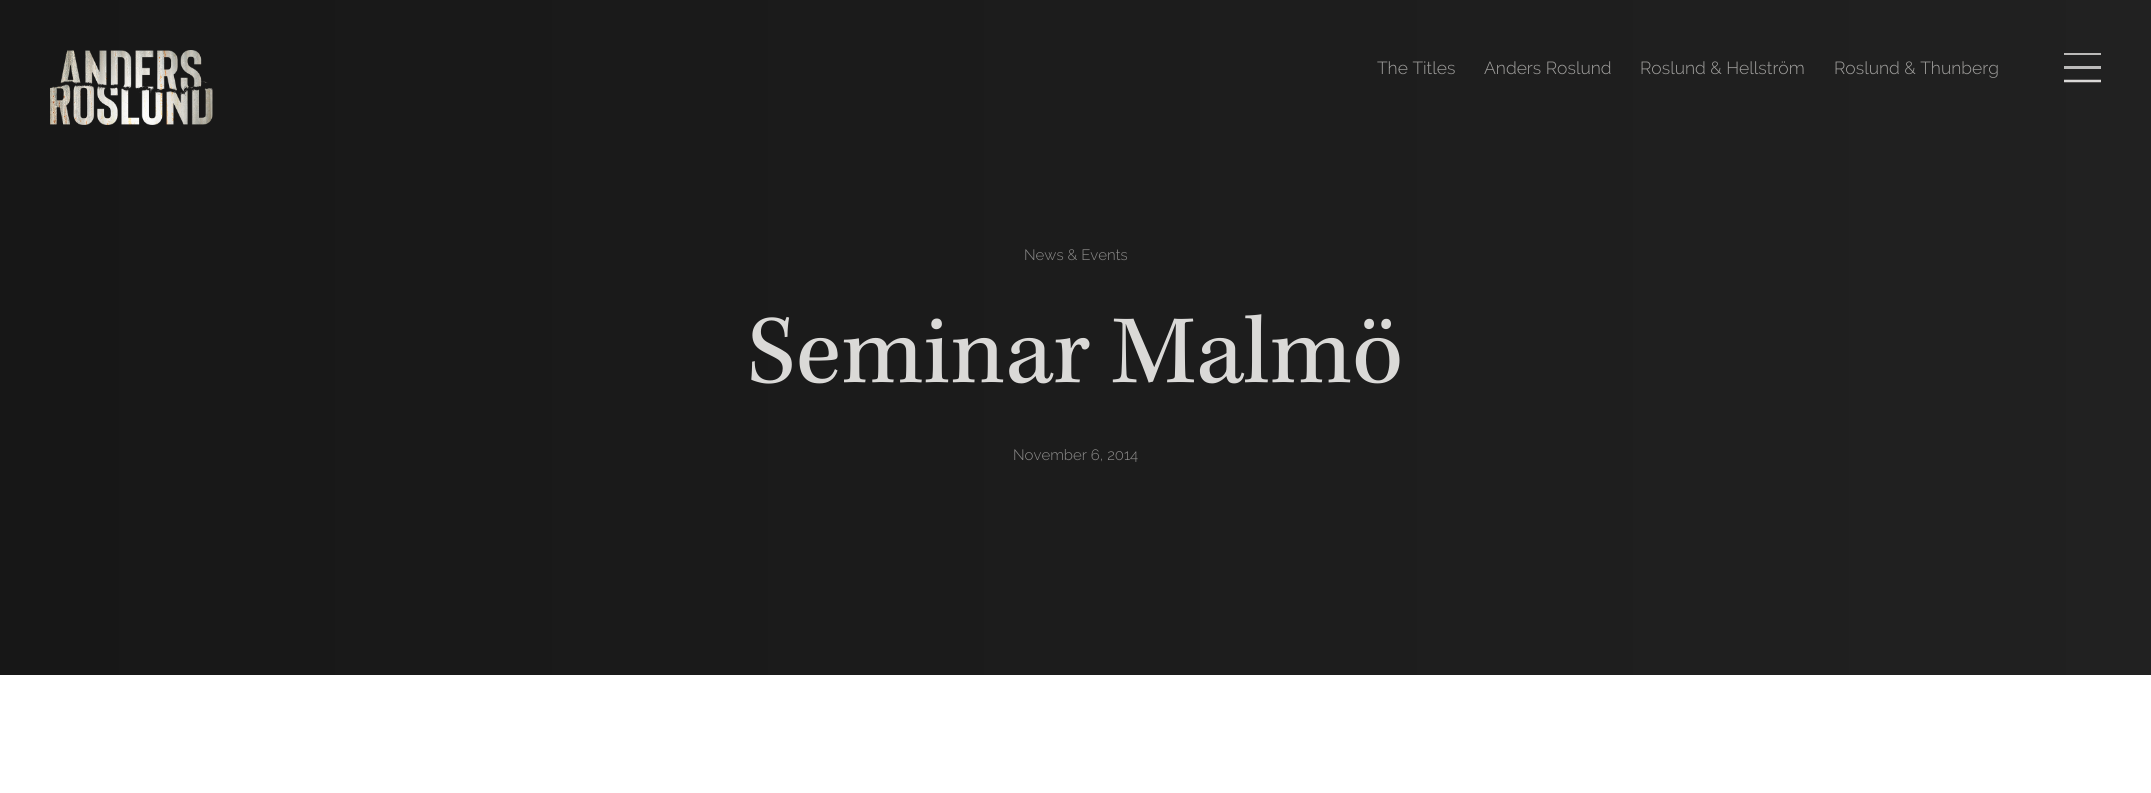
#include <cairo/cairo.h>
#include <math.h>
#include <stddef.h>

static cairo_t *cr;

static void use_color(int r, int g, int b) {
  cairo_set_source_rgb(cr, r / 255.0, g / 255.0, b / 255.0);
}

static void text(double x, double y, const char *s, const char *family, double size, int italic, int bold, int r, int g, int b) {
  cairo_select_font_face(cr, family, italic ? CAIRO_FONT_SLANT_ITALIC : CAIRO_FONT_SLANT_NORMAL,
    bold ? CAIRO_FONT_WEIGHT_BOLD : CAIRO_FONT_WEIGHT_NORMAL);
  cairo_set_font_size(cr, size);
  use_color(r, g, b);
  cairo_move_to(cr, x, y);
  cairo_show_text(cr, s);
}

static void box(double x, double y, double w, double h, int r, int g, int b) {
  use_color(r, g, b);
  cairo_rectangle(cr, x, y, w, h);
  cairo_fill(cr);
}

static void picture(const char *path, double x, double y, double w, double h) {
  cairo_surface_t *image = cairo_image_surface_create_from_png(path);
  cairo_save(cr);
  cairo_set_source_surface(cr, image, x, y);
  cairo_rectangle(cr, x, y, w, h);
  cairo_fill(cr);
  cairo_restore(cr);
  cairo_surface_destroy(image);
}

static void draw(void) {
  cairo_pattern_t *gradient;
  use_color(255, 255, 255);
  cairo_paint(cr);
  gradient = cairo_pattern_create_linear(0, 0, 2151, 0);
  cairo_pattern_add_color_stop_rgba(gradient, 0, 0.09, 0.09, 0.09, 1);
  cairo_pattern_add_color_stop_rgba(gradient, 1, 0.129, 0.129, 0.129, 1);
  cairo_set_source(cr, gradient);
  cairo_pattern_destroy(gradient);
  cairo_rectangle(cr, 0, 0, 2151, 675);
  cairo_fill(cr);
  picture("img_01.png", 50, 50, 163, 75);
  box(2064, 53, 37, 2, 187, 186, 185);
  box(2064, 66, 37, 3, 187, 186, 185);
  cairo_new_path(cr);
  cairo_move_to(cr, 2064, 81);
  cairo_line_to(cr, 2101, 81);
  use_color(218, 217, 215);
  cairo_set_line_width(cr, 2.5);
  cairo_stroke(cr);
  text(1377, 74, "The Titles", "Raleway Light", 17.5, 0, 0, 162, 161, 159);
  text(1484, 74, "Anders Roslund", "Raleway Light", 17.5, 0, 0, 162, 161, 159);
  text(1640, 74, "Roslund & Hellström", "Raleway Light", 17.5, 0, 0, 162, 161, 159);
  text(1834, 74, "Roslund & Thunberg", "Raleway Light", 17.5, 0, 0, 162, 161, 159);
  text(1024, 260, "News & Events", "Raleway Light", 15, 0, 0, 142, 141, 140);
  text(747, 382, "Seminar Malmö", "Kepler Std", 100, 0, 0, 218, 217, 215);
  text(1013, 460, "November 6, 2014", "Raleway Light", 15, 0, 0, 142, 141, 140);
}

int main(void) {
  cairo_surface_t *surface = cairo_image_surface_create(CAIRO_FORMAT_RGB24, 2151, 793);
  cr = cairo_create(surface);
  cairo_font_options_t *options = cairo_font_options_create();
  cairo_font_options_set_hint_metrics(options, CAIRO_HINT_METRICS_OFF);
  cairo_font_options_set_hint_style(options, CAIRO_HINT_STYLE_NONE);
  cairo_set_font_options(cr, options);
  cairo_set_miter_limit(cr, 4);
  draw();
  cairo_surface_write_to_png(surface, "out.png");
  cairo_font_options_destroy(options);
  cairo_destroy(cr);
  cairo_surface_destroy(surface);
  return 0;
}
